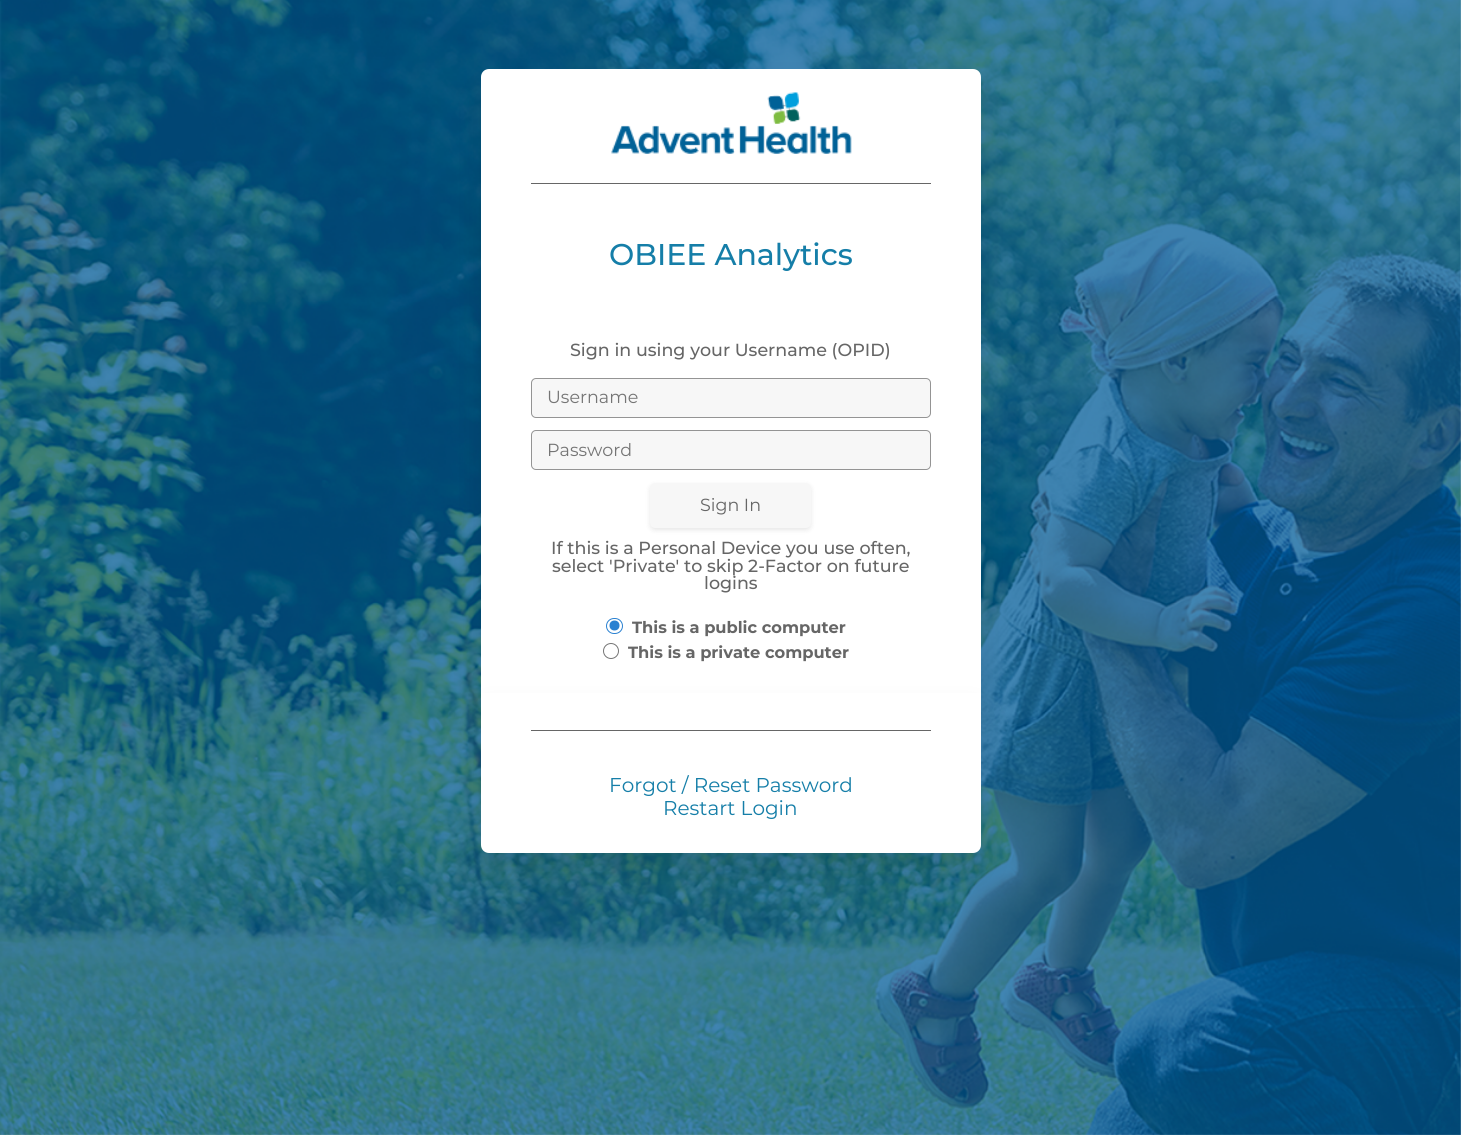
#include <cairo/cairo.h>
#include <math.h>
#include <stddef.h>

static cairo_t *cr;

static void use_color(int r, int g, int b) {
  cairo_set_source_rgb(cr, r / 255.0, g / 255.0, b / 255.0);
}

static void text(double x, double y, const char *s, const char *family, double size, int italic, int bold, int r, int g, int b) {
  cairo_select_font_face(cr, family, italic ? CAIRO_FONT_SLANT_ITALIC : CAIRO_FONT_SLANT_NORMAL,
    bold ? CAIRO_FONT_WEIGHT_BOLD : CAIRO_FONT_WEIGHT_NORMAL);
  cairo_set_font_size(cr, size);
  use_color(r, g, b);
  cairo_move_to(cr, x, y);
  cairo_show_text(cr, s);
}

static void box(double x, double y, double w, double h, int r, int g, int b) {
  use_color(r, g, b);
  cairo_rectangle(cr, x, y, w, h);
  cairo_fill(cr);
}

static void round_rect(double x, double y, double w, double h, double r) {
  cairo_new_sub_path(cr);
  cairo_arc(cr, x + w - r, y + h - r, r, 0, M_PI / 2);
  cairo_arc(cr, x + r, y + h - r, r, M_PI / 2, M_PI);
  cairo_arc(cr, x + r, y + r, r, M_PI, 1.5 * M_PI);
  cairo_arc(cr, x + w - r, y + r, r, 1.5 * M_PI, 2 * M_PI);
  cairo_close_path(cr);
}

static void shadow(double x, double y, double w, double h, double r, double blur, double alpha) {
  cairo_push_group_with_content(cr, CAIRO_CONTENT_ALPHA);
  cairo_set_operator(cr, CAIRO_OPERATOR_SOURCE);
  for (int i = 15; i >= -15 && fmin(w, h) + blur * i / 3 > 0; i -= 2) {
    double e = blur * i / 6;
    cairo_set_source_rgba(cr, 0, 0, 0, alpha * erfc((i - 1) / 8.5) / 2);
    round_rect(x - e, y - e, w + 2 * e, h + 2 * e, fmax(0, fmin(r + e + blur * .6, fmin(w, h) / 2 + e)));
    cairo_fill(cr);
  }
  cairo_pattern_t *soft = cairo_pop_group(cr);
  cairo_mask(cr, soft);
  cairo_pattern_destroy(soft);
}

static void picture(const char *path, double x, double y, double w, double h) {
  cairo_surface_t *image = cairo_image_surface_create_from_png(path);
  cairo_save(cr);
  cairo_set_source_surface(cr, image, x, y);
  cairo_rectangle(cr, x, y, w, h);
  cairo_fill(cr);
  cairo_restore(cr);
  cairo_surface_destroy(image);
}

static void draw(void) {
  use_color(255, 255, 255);
  cairo_paint(cr);
  picture("img_01.png", 0, 0, 1461, 1135);
  use_color(0, 0, 0);
  shadow(481, 89, 500, 624, 8, 15, 0.1);
  use_color(255, 255, 255);
  cairo_new_path(cr);
  cairo_move_to(cr, 489, 69);
  cairo_line_to(cr, 973, 69);
  cairo_curve_to(cr, 977.5, 69, 981, 72.5, 981, 77);
  cairo_line_to(cr, 981, 693);
  cairo_line_to(cr, 481, 693);
  cairo_line_to(cr, 481, 77);
  cairo_curve_to(cr, 481, 72.5, 484.5, 69, 489, 69);
  cairo_close_path(cr);
  cairo_fill(cr);
  picture("img_02.png", 611, 92, 241, 62);
  box(531, 183, 400, 1, 102, 102, 102);
  use_color(247, 247, 247);
  round_rect(531.5, 378.5, 399, 39, 4.5);
  cairo_fill_preserve(cr);
  use_color(148, 148, 148);
  cairo_set_line_width(cr, 1);
  cairo_stroke(cr);
  use_color(247, 247, 247);
  round_rect(531.5, 430.5, 399, 39, 4.5);
  cairo_fill_preserve(cr);
  use_color(148, 148, 148);
  cairo_stroke(cr);
  use_color(0, 0, 0);
  shadow(650, 485, 161, 45, 5, 2.5, 0.1);
  use_color(247, 247, 247);
  round_rect(650, 483, 161, 45, 5);
  cairo_fill(cr);
  round_rect(606.5, 618.5, 16, 15, 7.5);
  use_color(42, 129, 209);
  cairo_stroke(cr);
  cairo_arc(cr, 614.5, 625.5, 5, 0, 2 * M_PI);
  cairo_fill(cr);
  cairo_arc(cr, 611, 651, 7.5, 0, 2 * M_PI);
  use_color(118, 118, 118);
  cairo_stroke(cr);
  use_color(0, 0, 0);
  shadow(481, 713, 500, 160, 8, 15, 0.1);
  use_color(255, 255, 255);
  cairo_new_path(cr);
  cairo_move_to(cr, 481, 693);
  cairo_line_to(cr, 981, 693);
  cairo_line_to(cr, 981, 845);
  cairo_curve_to(cr, 981, 849.5, 977.5, 853, 973, 853);
  cairo_line_to(cr, 489, 853);
  cairo_curve_to(cr, 484.5, 853, 481, 849.5, 481, 845);
  cairo_close_path(cr);
  cairo_fill(cr);
  box(531, 730, 400, 1, 102, 102, 102);
  text(609, 265, "OBIEE Analytics", "Montserrat Medium", 30, 0, 0, 21, 126, 168);
  text(570, 356, "Sign in using your Username (OPID)", "Montserrat Medium", 17.5, 0, 0, 102, 102, 102);
  text(547, 403, "Username", "Montserrat", 17.5, 0, 0, 117, 117, 117);
  text(547, 456, "Password", "Montserrat", 17.5, 0, 0, 117, 117, 117);
  text(700, 511, "Sign In", "Montserrat", 17.5, 0, 0, 102, 102, 102);
  text(551, 554, "If this is a Personal Device you use often,", "Montserrat Medium", 17.5, 0, 0, 102, 102, 102);
  text(552, 572, "select 'Private' to skip 2-Factor on future", "Montserrat Medium", 17.5, 0, 0, 102, 102, 102);
  text(704, 589, "logins", "Montserrat Medium", 17.5, 0, 0, 102, 102, 102);
  text(632, 633, "This is a public computer", "Montserrat", 16.25, 0, 1, 102, 102, 102);
  text(628, 658, "This is a private computer", "Montserrat", 16.25, 0, 1, 102, 102, 102);
  text(609, 792, "Forgot / Reset Password", "Montserrat", 20, 0, 0, 21, 126, 168);
  text(663, 815, "Restart Login", "Montserrat", 20, 0, 0, 21, 126, 168);
}

int main(void) {
  cairo_surface_t *surface = cairo_image_surface_create(CAIRO_FORMAT_RGB24, 1461, 1135);
  cr = cairo_create(surface);
  cairo_font_options_t *options = cairo_font_options_create();
  cairo_font_options_set_hint_metrics(options, CAIRO_HINT_METRICS_OFF);
  cairo_font_options_set_hint_style(options, CAIRO_HINT_STYLE_NONE);
  cairo_set_font_options(cr, options);
  cairo_set_miter_limit(cr, 4);
  draw();
  cairo_surface_write_to_png(surface, "out.png");
  cairo_font_options_destroy(options);
  cairo_destroy(cr);
  cairo_surface_destroy(surface);
  return 0;
}
